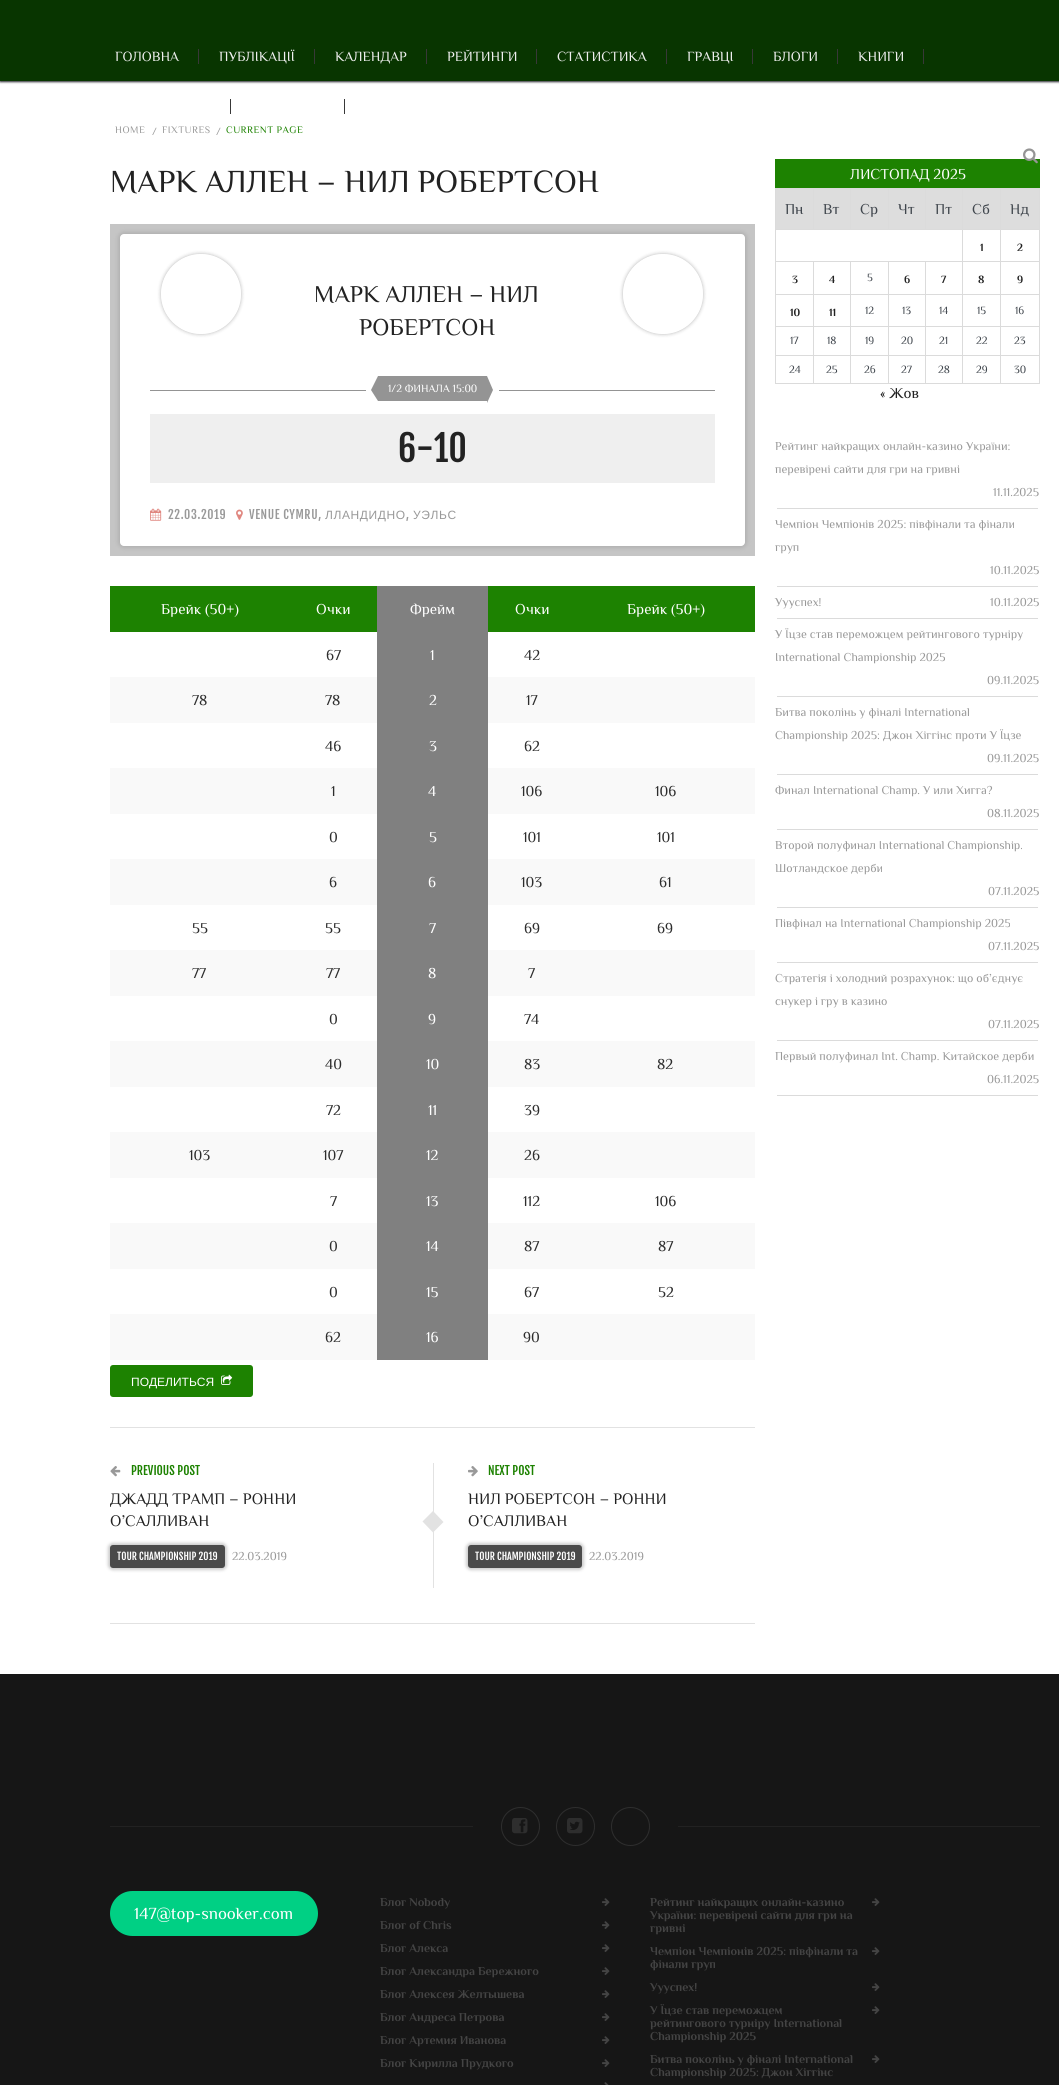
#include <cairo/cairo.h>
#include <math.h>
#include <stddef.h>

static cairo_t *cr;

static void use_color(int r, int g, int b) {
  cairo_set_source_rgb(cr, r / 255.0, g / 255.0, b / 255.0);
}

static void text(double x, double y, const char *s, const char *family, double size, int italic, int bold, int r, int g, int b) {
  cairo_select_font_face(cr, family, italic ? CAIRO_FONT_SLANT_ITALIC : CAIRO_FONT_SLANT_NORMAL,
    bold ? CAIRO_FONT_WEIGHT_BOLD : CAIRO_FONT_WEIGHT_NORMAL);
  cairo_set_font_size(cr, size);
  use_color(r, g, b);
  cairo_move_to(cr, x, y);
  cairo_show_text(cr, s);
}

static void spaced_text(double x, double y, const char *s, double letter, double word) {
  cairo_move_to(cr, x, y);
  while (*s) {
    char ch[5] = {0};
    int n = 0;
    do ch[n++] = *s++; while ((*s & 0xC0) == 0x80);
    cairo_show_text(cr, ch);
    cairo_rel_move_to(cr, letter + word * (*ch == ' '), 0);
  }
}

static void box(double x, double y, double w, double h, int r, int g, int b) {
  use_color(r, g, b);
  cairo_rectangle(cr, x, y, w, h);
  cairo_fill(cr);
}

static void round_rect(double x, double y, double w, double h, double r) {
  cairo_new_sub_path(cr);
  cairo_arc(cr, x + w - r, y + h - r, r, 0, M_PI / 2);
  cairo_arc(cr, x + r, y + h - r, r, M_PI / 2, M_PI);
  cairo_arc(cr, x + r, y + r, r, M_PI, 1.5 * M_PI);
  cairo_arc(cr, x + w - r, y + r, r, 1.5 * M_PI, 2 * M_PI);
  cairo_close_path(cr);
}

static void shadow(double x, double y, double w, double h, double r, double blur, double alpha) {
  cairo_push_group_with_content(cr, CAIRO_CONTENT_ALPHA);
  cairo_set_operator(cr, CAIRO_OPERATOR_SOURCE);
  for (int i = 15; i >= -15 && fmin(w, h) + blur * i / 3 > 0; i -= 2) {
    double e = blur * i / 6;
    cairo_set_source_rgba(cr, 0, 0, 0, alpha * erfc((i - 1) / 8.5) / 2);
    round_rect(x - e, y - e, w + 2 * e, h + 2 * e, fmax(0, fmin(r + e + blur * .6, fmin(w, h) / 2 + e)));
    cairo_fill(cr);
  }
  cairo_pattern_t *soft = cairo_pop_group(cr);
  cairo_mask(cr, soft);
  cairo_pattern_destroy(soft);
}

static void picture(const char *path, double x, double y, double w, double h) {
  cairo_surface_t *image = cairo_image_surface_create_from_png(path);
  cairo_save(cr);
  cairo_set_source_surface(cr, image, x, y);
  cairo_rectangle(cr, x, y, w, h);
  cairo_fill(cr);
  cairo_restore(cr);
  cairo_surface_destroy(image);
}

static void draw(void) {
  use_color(255, 255, 255);
  cairo_paint(cr);
  use_color(41, 42, 48);
  shadow(0, -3, 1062, 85, 0, 1, 1);
  box(0, 0, 1059, 81, 8, 53, 0);
  box(198, 49, 1, 15, 56, 56, 56);
  box(314, 49, 1, 15, 56, 56, 56);
  box(426, 49, 1, 15, 56, 56, 56);
  box(536, 49, 1, 15, 56, 56, 56);
  box(666, 49, 1, 15, 56, 56, 56);
  box(752, 49, 1, 15, 56, 56, 56);
  box(837, 49, 1, 15, 56, 56, 56);
  box(923, 49, 1, 15, 56, 56, 56);
  box(230, 99, 1, 15, 56, 56, 56);
  box(344, 99, 1, 15, 56, 56, 56);
  box(775, 159, 265, 29, 29, 130, 1);
  picture("img_01.png", 1023, 148, 15, 16);
  box(110, 224, 645, 332, 197, 197, 197);
  use_color(177, 177, 177);
  shadow(118, 232, 629, 316, 6, 2, 1);
  use_color(255, 255, 255);
  round_rect(120, 234, 625, 312, 4);
  cairo_fill(cr);
  cairo_save(cr);
  cairo_set_fill_rule(cr, CAIRO_FILL_RULE_EVEN_ODD);
  cairo_new_path(cr);
  cairo_move_to(cr, 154, 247);
  cairo_line_to(cr, 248, 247);
  cairo_line_to(cr, 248, 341);
  cairo_line_to(cr, 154, 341);
  cairo_close_path(cr);
  cairo_move_to(cr, 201, 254);
  cairo_curve_to(cr, 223, 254, 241, 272, 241, 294);
  cairo_curve_to(cr, 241, 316, 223, 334, 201, 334);
  cairo_curve_to(cr, 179, 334, 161, 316, 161, 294);
  cairo_curve_to(cr, 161, 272, 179, 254, 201, 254);
  cairo_close_path(cr);
  cairo_clip(cr);
  use_color(0, 0, 0);
  shadow(161, 254, 80, 80, 40, 2, 0.3);
  cairo_restore(cr);
  cairo_save(cr);
  cairo_set_fill_rule(cr, CAIRO_FILL_RULE_EVEN_ODD);
  cairo_new_path(cr);
  cairo_move_to(cr, 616, 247);
  cairo_line_to(cr, 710, 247);
  cairo_line_to(cr, 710, 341);
  cairo_line_to(cr, 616, 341);
  cairo_close_path(cr);
  cairo_move_to(cr, 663, 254);
  cairo_curve_to(cr, 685, 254, 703, 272, 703, 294);
  cairo_curve_to(cr, 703, 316, 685, 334, 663, 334);
  cairo_curve_to(cr, 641, 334, 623, 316, 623, 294);
  cairo_curve_to(cr, 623, 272, 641, 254, 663, 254);
  cairo_close_path(cr);
  cairo_clip(cr);
  use_color(0, 0, 0);
  shadow(623, 254, 80, 80, 40, 2, 0.3);
  cairo_restore(cr);
  box(378, 376, 109, 25, 148, 148, 148);
  box(150, 390, 216, 1, 148, 148, 148);
  cairo_new_path(cr);
  cairo_move_to(cr, 378, 376);
  cairo_line_to(cr, 378, 401);
  cairo_line_to(cr, 371, 390);
  cairo_close_path(cr);
  cairo_fill(cr);
  cairo_new_path(cr);
  cairo_move_to(cr, 487, 403);
  cairo_line_to(cr, 487, 376);
  cairo_line_to(cr, 493, 390);
  cairo_close_path(cr);
  cairo_fill(cr);
  box(499, 390, 216, 1, 148, 148, 148);
  box(150, 414, 565, 69, 239, 239, 239);
  picture("img_02.png", 150, 508, 12, 13);
  picture("img_03.png", 236, 509, 7, 11);
  box(110, 586, 267, 46, 29, 130, 1);
  box(377, 586, 111, 91, 128, 128, 128);
  box(488, 586, 267, 46, 29, 130, 1);
  box(110, 677, 645, 46, 249, 249, 249);
  box(377, 677, 111, 91, 128, 128, 128);
  box(110, 768, 645, 46, 249, 249, 249);
  box(377, 768, 111, 91, 128, 128, 128);
  box(110, 859, 645, 46, 249, 249, 249);
  box(377, 859, 111, 91, 128, 128, 128);
  box(110, 950, 645, 46, 249, 249, 249);
  box(377, 950, 111, 91, 128, 128, 128);
  box(110, 1041, 645, 46, 249, 249, 249);
  box(377, 1041, 111, 91, 128, 128, 128);
  box(110, 1132, 645, 46, 249, 249, 249);
  box(377, 1132, 111, 91, 128, 128, 128);
  box(110, 1223, 645, 46, 249, 249, 249);
  box(377, 1223, 111, 91, 128, 128, 128);
  box(110, 1314, 645, 46, 249, 249, 249);
  box(377, 1314, 111, 46, 128, 128, 128);
  use_color(29, 130, 1);
  round_rect(110, 1365, 143, 32, 3);
  cairo_fill(cr);
  picture("img_04.png", 221, 1374, 12, 11);
  box(110, 1427, 645, 1, 226, 226, 226);
  box(110, 1623, 645, 1, 226, 226, 226);
  picture("img_05.png", 110, 1466, 11, 11);
  use_color(204, 204, 204);
  shadow(108, 1543, 119, 27, 5, 1.5, 1);
  use_color(74, 74, 74);
  round_rect(110, 1545, 115, 23, 3);
  cairo_fill(cr);
  use_color(226, 226, 226);
  cairo_new_path(cr);
  cairo_move_to(cr, 433, 1511);
  cairo_line_to(cr, 443.5, 1522);
  cairo_line_to(cr, 433, 1532.5);
  cairo_line_to(cr, 422.5, 1521.5);
  cairo_close_path(cr);
  cairo_fill(cr);
  box(433, 1463, 1, 125, 226, 226, 226);
  picture("img_06.png", 468, 1466, 10, 11);
  use_color(204, 204, 204);
  shadow(466, 1543, 118, 27, 5, 1.5, 1);
  use_color(74, 74, 74);
  round_rect(468, 1545, 114, 23, 3);
  cairo_fill(cr);
  box(776, 189, 37, 40, 221, 221, 221);
  box(1000, 188, 40, 1, 219, 219, 219);
  box(1000, 229, 40, 1, 219, 219, 219);
  box(1000, 261, 40, 1, 219, 219, 219);
  box(1000, 294, 40, 1, 219, 219, 219);
  box(1000, 326, 40, 1, 219, 219, 219);
  box(1000, 355, 40, 1, 219, 219, 219);
  box(1039, 355, 1, 29, 219, 219, 219);
  box(1000, 383, 40, 1, 219, 219, 219);
  box(1000, 355, 1, 29, 219, 219, 219);
  box(962, 355, 39, 1, 219, 219, 219);
  box(1000, 326, 1, 30, 219, 219, 219);
  box(962, 326, 39, 1, 219, 219, 219);
  box(1000, 294, 1, 33, 219, 219, 219);
  box(962, 294, 39, 1, 219, 219, 219);
  box(1000, 261, 1, 34, 219, 219, 219);
  box(962, 261, 39, 1, 219, 219, 219);
  box(1000, 229, 1, 33, 219, 219, 219);
  box(962, 229, 39, 1, 219, 219, 219);
  box(1000, 188, 1, 42, 219, 219, 219);
  box(962, 188, 39, 1, 219, 219, 219);
  box(962, 383, 39, 1, 219, 219, 219);
  box(962, 355, 1, 29, 219, 219, 219);
  box(925, 355, 38, 1, 219, 219, 219);
  box(962, 326, 1, 30, 219, 219, 219);
  box(925, 326, 38, 1, 219, 219, 219);
  box(962, 294, 1, 33, 219, 219, 219);
  box(925, 294, 38, 1, 219, 219, 219);
  box(962, 261, 1, 34, 219, 219, 219);
  box(925, 261, 38, 1, 219, 219, 219);
  box(962, 229, 1, 33, 219, 219, 219);
  box(775, 229, 188, 1, 219, 219, 219);
  box(962, 188, 1, 42, 219, 219, 219);
  box(925, 188, 38, 1, 219, 219, 219);
  box(925, 188, 1, 42, 219, 219, 219);
  box(888, 188, 38, 1, 219, 219, 219);
  box(888, 188, 1, 42, 219, 219, 219);
  box(850, 188, 39, 1, 219, 219, 219);
  box(850, 188, 1, 42, 219, 219, 219);
  box(813, 188, 38, 1, 219, 219, 219);
  box(813, 188, 1, 42, 219, 219, 219);
  box(775, 188, 39, 1, 219, 219, 219);
  box(925, 383, 38, 1, 219, 219, 219);
  box(925, 355, 1, 29, 219, 219, 219);
  box(888, 355, 38, 1, 219, 219, 219);
  box(925, 326, 1, 30, 219, 219, 219);
  box(888, 326, 38, 1, 219, 219, 219);
  box(925, 294, 1, 33, 219, 219, 219);
  box(888, 294, 38, 1, 219, 219, 219);
  box(925, 261, 1, 34, 219, 219, 219);
  box(888, 261, 38, 1, 219, 219, 219);
  box(888, 383, 38, 1, 219, 219, 219);
  box(888, 355, 1, 29, 219, 219, 219);
  box(850, 355, 39, 1, 219, 219, 219);
  box(888, 326, 1, 30, 219, 219, 219);
  box(850, 326, 39, 1, 219, 219, 219);
  box(888, 294, 1, 33, 219, 219, 219);
  box(850, 294, 39, 1, 219, 219, 219);
  box(888, 261, 1, 34, 219, 219, 219);
  box(850, 261, 39, 1, 219, 219, 219);
  box(850, 383, 39, 1, 219, 219, 219);
  box(850, 355, 1, 29, 219, 219, 219);
  box(813, 355, 38, 1, 219, 219, 219);
  box(850, 326, 1, 30, 219, 219, 219);
  box(813, 326, 38, 1, 219, 219, 219);
  box(850, 294, 1, 33, 219, 219, 219);
  box(813, 294, 38, 1, 219, 219, 219);
  box(850, 261, 1, 34, 219, 219, 219);
  box(813, 261, 38, 1, 219, 219, 219);
  box(813, 383, 38, 1, 219, 219, 219);
  box(813, 355, 1, 29, 219, 219, 219);
  box(775, 355, 39, 1, 219, 219, 219);
  box(813, 326, 1, 30, 219, 219, 219);
  box(775, 326, 39, 1, 219, 219, 219);
  box(813, 294, 1, 33, 219, 219, 219);
  box(775, 294, 39, 1, 219, 219, 219);
  box(813, 261, 1, 34, 219, 219, 219);
  box(775, 261, 39, 1, 219, 219, 219);
  box(775, 383, 39, 1, 219, 219, 219);
  box(775, 355, 1, 29, 219, 219, 219);
  box(775, 326, 1, 30, 219, 219, 219);
  box(775, 294, 1, 33, 219, 219, 219);
  box(775, 261, 1, 34, 219, 219, 219);
  box(775, 229, 1, 33, 219, 219, 219);
  box(775, 188, 1, 42, 219, 219, 219);
  box(814, 189, 36, 40, 221, 221, 221);
  box(851, 189, 37, 40, 221, 221, 221);
  box(889, 189, 36, 40, 221, 221, 221);
  box(926, 189, 36, 40, 221, 221, 221);
  box(963, 189, 37, 40, 221, 221, 221);
  box(1001, 189, 38, 40, 221, 221, 221);
  box(1039, 326, 1, 30, 219, 219, 219);
  box(1039, 294, 1, 33, 219, 219, 219);
  box(1039, 261, 1, 34, 219, 219, 219);
  box(1039, 229, 1, 33, 219, 219, 219);
  box(1039, 188, 1, 42, 219, 219, 219);
  box(777, 508, 261, 1, 219, 219, 219);
  box(777, 586, 261, 1, 219, 219, 219);
  box(777, 618, 261, 1, 219, 219, 219);
  box(777, 696, 261, 1, 219, 219, 219);
  box(777, 774, 261, 1, 219, 219, 219);
  box(777, 829, 261, 1, 219, 219, 219);
  box(777, 907, 261, 1, 219, 219, 219);
  box(777, 962, 261, 1, 219, 219, 219);
  box(777, 1040, 261, 1, 219, 219, 219);
  box(777, 1095, 261, 1, 219, 219, 219);
  box(0, 1674, 1059, 411, 22, 22, 22);
  box(110, 1826, 363, 1, 34, 34, 34);
  cairo_arc(cr, 520.5, 1826.5, 19, 0, 2 * M_PI);
  use_color(46, 46, 46);
  cairo_set_line_width(cr, 1);
  cairo_stroke(cr);
  picture("img_07.png", 512, 1818, 16, 16);
  cairo_arc(cr, 575.5, 1826.5, 19, 0, 2 * M_PI);
  cairo_stroke(cr);
  picture("img_08.png", 567, 1818, 16, 16);
  cairo_arc(cr, 630.5, 1826.5, 19, 0, 2 * M_PI);
  cairo_stroke(cr);
  box(678, 1826, 362, 1, 34, 34, 34);
  use_color(0, 208, 132);
  round_rect(110, 1891, 208, 45, 22.5);
  cairo_fill(cr);
  picture("img_09.png", 602, 1898, 8, 8);
  picture("img_09.png", 602, 1921, 8, 8);
  picture("img_09.png", 602, 1944, 8, 8);
  picture("img_09.png", 602, 1967, 8, 8);
  picture("img_09.png", 602, 1990, 8, 8);
  picture("img_09.png", 602, 2013, 8, 8);
  picture("img_09.png", 602, 2036, 8, 8);
  picture("img_09.png", 602, 2059, 8, 8);
  picture("img_10.png", 604, 2082, 5, 3);
  picture("img_09.png", 872, 1898, 8, 8);
  picture("img_09.png", 872, 1947, 8, 8);
  picture("img_09.png", 872, 1983, 8, 8);
  picture("img_09.png", 872, 2006, 8, 8);
  picture("img_09.png", 872, 2055, 8, 8);
  text(115, 61, "ГОЛОВНА", "Philosopher", 14, 0, 0, 239, 239, 239);
  text(219, 61, "ПУБЛІКАЦІЇ", "Philosopher", 14, 0, 0, 239, 239, 239);
  text(335, 61, "КАЛЕНДАР", "Philosopher", 14, 0, 0, 239, 239, 239);
  text(447, 61, "РЕЙТИНГИ", "Philosopher", 14, 0, 0, 239, 239, 239);
  text(557, 61, "СТАТИСТИКА", "Philosopher", 14, 0, 0, 239, 239, 239);
  text(687, 61, "ГРАВЦІ", "Philosopher", 14, 0, 0, 239, 239, 239);
  text(773, 61, "БЛОГИ", "Philosopher", 14, 0, 0, 239, 239, 239);
  text(858, 61, "КНИГИ", "Philosopher", 14, 0, 0, 239, 239, 239);
  cairo_set_font_size(cr, 10);
  use_color(153, 153, 153);
  spaced_text(115, 133, "HOME", 0.5, 0);
  cairo_set_font_size(cr, 11);
  spaced_text(152, 135, "/", 0.5, 0);
  cairo_set_font_size(cr, 10);
  spaced_text(162, 133, "FIXTURES", 0.5, 0);
  cairo_set_font_size(cr, 11);
  spaced_text(216, 135, "/", 0.5, 0);
  cairo_set_font_size(cr, 10);
  use_color(29, 130, 1);
  spaced_text(226, 133, "CURRENT PAGE", 0.5, 0);
  text(110, 192, "МАРК АЛЛЕН – НИЛ РОБЕРТСОН", "Philosopher", 32, 0, 0, 34, 34, 34);
  text(314, 302, "МАРК АЛЛЕН – НИЛ", "Philosopher", 24, 0, 0, 34, 34, 34);
  text(359, 335, "РОБЕРТСОН", "Philosopher", 24, 0, 0, 34, 34, 34);
  text(388, 392, "1/2 ФИНАЛА 15:00", "Philosopher", 11, 0, 0, 255, 255, 255);
  text(398, 462, "6-10", "Fjalla One", 36, 0, 0, 34, 34, 34);
  cairo_set_font_size(cr, 12);
  use_color(153, 153, 153);
  spaced_text(168, 519, "22.03.2019", 0.6, 0);
  spaced_text(249, 519, "VENUE CYMRU,", 0.6, 0);
  cairo_select_font_face(cr, "Liberation Sans", CAIRO_FONT_SLANT_NORMAL, CAIRO_FONT_WEIGHT_NORMAL);
  spaced_text(325, 519, "ЛЛАНДИДНО", 0.6, 0);
  cairo_select_font_face(cr, "Fjalla One", CAIRO_FONT_SLANT_NORMAL, CAIRO_FONT_WEIGHT_NORMAL);
  spaced_text(406, 519, ",", 0.6, 0);
  cairo_select_font_face(cr, "Liberation Sans", CAIRO_FONT_SLANT_NORMAL, CAIRO_FONT_WEIGHT_NORMAL);
  spaced_text(413, 519, "УЭЛЬС", 0.6, 0);
  text(161, 614, "Брейк (50+)", "Philosopher", 15, 0, 0, 255, 255, 255);
  text(316, 614, "Очки", "Philosopher", 15, 0, 0, 255, 255, 255);
  text(410, 614, "Фрейм", "Philosopher", 15, 0, 0, 255, 255, 255);
  text(515, 614, "Очки", "Philosopher", 15, 0, 0, 255, 255, 255);
  text(627, 614, "Брейк (50+)", "Philosopher", 15, 0, 0, 255, 255, 255);
  text(326, 660, "67", "Philosopher", 15, 0, 0, 45, 45, 45);
  text(430, 660, "1", "Philosopher", 15, 0, 0, 255, 255, 255);
  text(524, 660, "42", "Philosopher", 15, 0, 0, 45, 45, 45);
  text(192, 705, "78", "Philosopher", 15, 0, 0, 45, 45, 45);
  text(325, 705, "78", "Philosopher", 15, 0, 0, 45, 45, 45);
  text(429, 705, "2", "Philosopher", 15, 0, 0, 255, 255, 255);
  text(526, 705, "17", "Philosopher", 15, 0, 0, 45, 45, 45);
  text(325, 751, "46", "Philosopher", 15, 0, 0, 45, 45, 45);
  text(429, 751, "3", "Philosopher", 15, 0, 0, 255, 255, 255);
  text(524, 751, "62", "Philosopher", 15, 0, 0, 45, 45, 45);
  text(331, 796, "1", "Philosopher", 15, 0, 0, 45, 45, 45);
  text(428, 796, "4", "Philosopher", 15, 0, 0, 255, 255, 255);
  text(521, 796, "106", "Philosopher", 15, 0, 0, 45, 45, 45);
  text(655, 796, "106", "Philosopher", 15, 0, 0, 45, 45, 45);
  text(329, 842, "0", "Philosopher", 15, 0, 0, 45, 45, 45);
  text(429, 842, "5", "Philosopher", 15, 0, 0, 255, 255, 255);
  text(523, 842, "101", "Philosopher", 15, 0, 0, 45, 45, 45);
  text(657, 842, "101", "Philosopher", 15, 0, 0, 45, 45, 45);
  text(329, 887, "6", "Philosopher", 15, 0, 0, 45, 45, 45);
  text(428, 887, "6", "Philosopher", 15, 0, 0, 255, 255, 255);
  text(521, 887, "103", "Philosopher", 15, 0, 0, 45, 45, 45);
  text(659, 887, "61", "Philosopher", 15, 0, 0, 45, 45, 45);
  text(192, 933, "55", "Philosopher", 15, 0, 0, 45, 45, 45);
  text(325, 933, "55", "Philosopher", 15, 0, 0, 45, 45, 45);
  text(429, 933, "7", "Philosopher", 15, 0, 0, 255, 255, 255);
  text(524, 933, "69", "Philosopher", 15, 0, 0, 45, 45, 45);
  text(657, 933, "69", "Philosopher", 15, 0, 0, 45, 45, 45);
  text(192, 978, "77", "Philosopher", 15, 0, 0, 45, 45, 45);
  text(326, 978, "77", "Philosopher", 15, 0, 0, 45, 45, 45);
  text(428, 978, "8", "Philosopher", 15, 0, 0, 255, 255, 255);
  text(528, 978, "7", "Philosopher", 15, 0, 0, 45, 45, 45);
  text(329, 1024, "0", "Philosopher", 15, 0, 0, 45, 45, 45);
  text(428, 1024, "9", "Philosopher", 15, 0, 0, 255, 255, 255);
  text(524, 1024, "74", "Philosopher", 15, 0, 0, 45, 45, 45);
  text(325, 1069, "40", "Philosopher", 15, 0, 0, 45, 45, 45);
  text(426, 1069, "10", "Philosopher", 15, 0, 0, 255, 255, 255);
  text(524, 1069, "83", "Philosopher", 15, 0, 0, 45, 45, 45);
  text(657, 1069, "82", "Philosopher", 15, 0, 0, 45, 45, 45);
  text(326, 1115, "72", "Philosopher", 15, 0, 0, 45, 45, 45);
  text(428, 1115, "11", "Philosopher", 15, 0, 0, 255, 255, 255);
  text(524, 1115, "39", "Philosopher", 15, 0, 0, 45, 45, 45);
  text(189, 1160, "103", "Philosopher", 15, 0, 0, 45, 45, 45);
  text(323, 1160, "107", "Philosopher", 15, 0, 0, 45, 45, 45);
  text(426, 1160, "12", "Philosopher", 15, 0, 0, 255, 255, 255);
  text(524, 1160, "26", "Philosopher", 15, 0, 0, 45, 45, 45);
  text(330, 1206, "7", "Philosopher", 15, 0, 0, 45, 45, 45);
  text(426, 1206, "13", "Philosopher", 15, 0, 0, 255, 255, 255);
  text(523, 1206, "112", "Philosopher", 15, 0, 0, 45, 45, 45);
  text(655, 1206, "106", "Philosopher", 15, 0, 0, 45, 45, 45);
  text(329, 1251, "0", "Philosopher", 15, 0, 0, 45, 45, 45);
  text(426, 1251, "14", "Philosopher", 15, 0, 0, 255, 255, 255);
  text(524, 1251, "87", "Philosopher", 15, 0, 0, 45, 45, 45);
  text(658, 1251, "87", "Philosopher", 15, 0, 0, 45, 45, 45);
  text(329, 1297, "0", "Philosopher", 15, 0, 0, 45, 45, 45);
  text(426, 1297, "15", "Philosopher", 15, 0, 0, 255, 255, 255);
  text(524, 1297, "67", "Philosopher", 15, 0, 0, 45, 45, 45);
  text(658, 1297, "52", "Philosopher", 15, 0, 0, 45, 45, 45);
  text(325, 1342, "62", "Philosopher", 15, 0, 0, 45, 45, 45);
  text(426, 1342, "16", "Philosopher", 15, 0, 0, 255, 255, 255);
  text(523, 1342, "90", "Philosopher", 15, 0, 0, 45, 45, 45);
  text(131, 1386, "ПОДЕЛИТЬСЯ", "Liberation Sans", 12, 0, 0, 255, 255, 255);
  text(131, 1475, "PREVIOUS POST", "Fjalla One", 12, 0, 0, 29, 130, 1);
  text(110, 1504, "ДЖАДД ТРАМП – РОННИ", "Philosopher", 16, 0, 0, 34, 34, 34);
  text(110, 1526, "О’САЛЛИВАН", "Philosopher", 16, 0, 0, 34, 34, 34);
  text(117, 1560, "TOUR CHAMPIONSHIP 2019", "Fjalla One", 10, 0, 0, 255, 255, 255);
  text(232, 1560, "22.03.2019", "Philosopher", 12, 0, 0, 153, 153, 153);
  text(488, 1475, "NEXT POST", "Fjalla One", 12, 0, 0, 29, 130, 1);
  text(468, 1504, "НИЛ РОБЕРТСОН – РОННИ", "Philosopher", 16, 0, 0, 34, 34, 34);
  text(468, 1526, "О’САЛЛИВАН", "Philosopher", 16, 0, 0, 34, 34, 34);
  text(475, 1560, "TOUR CHAMPIONSHIP 2019", "Fjalla One", 10, 0, 0, 255, 255, 255);
  text(589, 1560, "22.03.2019", "Philosopher", 12, 0, 0, 153, 153, 153);
  text(850, 179, "ЛИСТОПАД 2025", "Philosopher", 15, 0, 0, 255, 255, 255);
  text(785, 214, "Пн", "Philosopher", 15, 0, 0, 64, 70, 77);
  text(823, 214, "Вт", "Philosopher", 15, 0, 0, 64, 70, 77);
  text(860, 214, "Ср", "Philosopher", 15, 0, 0, 64, 70, 77);
  text(898, 214, "Чт", "Philosopher", 15, 0, 0, 64, 70, 77);
  text(935, 214, "Пт", "Philosopher", 15, 0, 0, 64, 70, 77);
  text(972, 214, "Сб", "Philosopher", 15, 0, 0, 64, 70, 77);
  text(1010, 214, "Нд", "Philosopher", 15, 0, 0, 64, 70, 77);
  text(980, 251, "1", "Philosopher", 11, 0, 1, 34, 34, 34);
  text(1017, 251, "2", "Philosopher", 11, 0, 1, 34, 34, 34);
  text(792, 283, "3", "Philosopher", 11, 0, 1, 34, 34, 34);
  text(829, 283, "4", "Philosopher", 11, 0, 1, 34, 34, 34);
  text(867, 281, "5", "Philosopher", 11, 0, 0, 64, 70, 77);
  text(904, 283, "6", "Philosopher", 11, 0, 1, 34, 34, 34);
  text(941, 283, "7", "Philosopher", 11, 0, 1, 34, 34, 34);
  text(978, 283, "8", "Philosopher", 11, 0, 1, 34, 34, 34);
  text(1017, 283, "9", "Philosopher", 11, 0, 1, 34, 34, 34);
  text(790, 316, "10", "Philosopher", 11, 0, 1, 34, 34, 34);
  text(829, 316, "11", "Philosopher", 11, 0, 1, 34, 34, 34);
  text(865, 314, "12", "Philosopher", 11, 0, 0, 64, 70, 77);
  text(902, 314, "13", "Philosopher", 11, 0, 0, 64, 70, 77);
  text(939, 314, "14", "Philosopher", 11, 0, 0, 64, 70, 77);
  text(977, 314, "15", "Philosopher", 11, 0, 0, 64, 70, 77);
  text(1015, 314, "16", "Philosopher", 11, 0, 0, 64, 70, 77);
  text(790, 344, "17", "Philosopher", 11, 0, 0, 64, 70, 77);
  text(827, 344, "18", "Philosopher", 11, 0, 0, 64, 70, 77);
  text(865, 344, "19", "Philosopher", 11, 0, 0, 64, 70, 77);
  text(901, 344, "20", "Philosopher", 11, 0, 0, 64, 70, 77);
  text(939, 344, "21", "Philosopher", 11, 0, 0, 64, 70, 77);
  text(976, 344, "22", "Philosopher", 11, 0, 0, 64, 70, 77);
  text(1014, 344, "23", "Philosopher", 11, 0, 0, 64, 70, 77);
  text(789, 373, "24", "Philosopher", 11, 0, 0, 64, 70, 77);
  text(826, 373, "25", "Philosopher", 11, 0, 0, 64, 70, 77);
  text(864, 373, "26", "Philosopher", 11, 0, 0, 64, 70, 77);
  text(901, 373, "27", "Philosopher", 11, 0, 0, 64, 70, 77);
  text(938, 373, "28", "Philosopher", 11, 0, 0, 64, 70, 77);
  text(976, 373, "29", "Philosopher", 11, 0, 0, 64, 70, 77);
  text(1014, 373, "30", "Philosopher", 11, 0, 0, 64, 70, 77);
  text(880, 398, "« Жов", "Philosopher", 15, 0, 0, 34, 34, 34);
  text(775, 450, "Рейтинг найкращих онлайн-казино України:", "Philosopher", 12, 0, 0, 153, 153, 153);
  text(775, 473, "перевірені сайти для гри на гривні", "Philosopher", 12, 0, 0, 153, 153, 153);
  text(993, 496, "11.11.2025", "Philosopher", 12, 0, 0, 153, 153, 153);
  text(775, 528, "Чемпіон Чемпіонів 2025: півфінали та фінали", "Philosopher", 12, 0, 0, 153, 153, 153);
  text(775, 551, "груп", "Philosopher", 12, 0, 0, 153, 153, 153);
  text(990, 574, "10.11.2025", "Philosopher", 12, 0, 0, 153, 153, 153);
  text(775, 606, "Уууспех!", "Philosopher", 12, 0, 0, 153, 153, 153);
  text(990, 606, "10.11.2025", "Philosopher", 12, 0, 0, 153, 153, 153);
  text(775, 638, "У Їцзе став переможцем рейтингового турніру", "Philosopher", 12, 0, 0, 153, 153, 153);
  text(775, 661, "International Championship 2025", "Philosopher", 12, 0, 0, 153, 153, 153);
  text(987, 684, "09.11.2025", "Philosopher", 12, 0, 0, 153, 153, 153);
  text(775, 716, "Битва поколінь у фіналі International", "Philosopher", 12, 0, 0, 153, 153, 153);
  text(775, 739, "Championship 2025: Джон Хіггінс проти У Їцзе", "Philosopher", 12, 0, 0, 153, 153, 153);
  text(987, 762, "09.11.2025", "Philosopher", 12, 0, 0, 153, 153, 153);
  text(775, 794, "Финал International Champ. У или Хигга?", "Philosopher", 12, 0, 0, 153, 153, 153);
  text(987, 817, "08.11.2025", "Philosopher", 12, 0, 0, 153, 153, 153);
  text(775, 849, "Второй полуфинал International Championship.", "Philosopher", 12, 0, 0, 153, 153, 153);
  text(775, 872, "Шотландское дерби", "Philosopher", 12, 0, 0, 153, 153, 153);
  text(988, 895, "07.11.2025", "Philosopher", 12, 0, 0, 153, 153, 153);
  text(775, 927, "Півфінал на International Championship 2025", "Philosopher", 12, 0, 0, 153, 153, 153);
  text(988, 950, "07.11.2025", "Philosopher", 12, 0, 0, 153, 153, 153);
  text(775, 982, "Стратегія і холодний розрахунок: що об’єднує", "Philosopher", 12, 0, 0, 153, 153, 153);
  text(775, 1005, "снукер і гру в казино", "Philosopher", 12, 0, 0, 153, 153, 153);
  text(988, 1028, "07.11.2025", "Philosopher", 12, 0, 0, 153, 153, 153);
  text(775, 1060, "Первый полуфинал Int. Champ. Китайское дерби", "Philosopher", 12, 0, 0, 153, 153, 153);
  text(987, 1083, "06.11.2025", "Philosopher", 12, 0, 0, 153, 153, 153);
  text(134, 1919, "147@top-snooker.com", "Philosopher", 16.9, 0, 0, 255, 255, 255);
  text(380, 1906, "Блог Nobody", "Philosopher", 12, 0, 1, 68, 68, 68);
  text(380, 1929, "Блог of Chris", "Philosopher", 12, 0, 1, 68, 68, 68);
  text(380, 1952, "Блог Алекса", "Philosopher", 12, 0, 1, 68, 68, 68);
  text(380, 1975, "Блог Александра Бережного", "Philosopher", 12, 0, 1, 68, 68, 68);
  text(380, 1998, "Блог Алексея Желтышева", "Philosopher", 12, 0, 1, 68, 68, 68);
  text(380, 2021, "Блог Андреса Петрова", "Philosopher", 12, 0, 1, 68, 68, 68);
  text(380, 2044, "Блог Артемия Иванова", "Philosopher", 12, 0, 1, 68, 68, 68);
  text(380, 2067, "Блог Кирилла Прудкого", "Philosopher", 12, 0, 1, 68, 68, 68);
  text(650, 1906, "Рейтинг найкращих онлайн-казино", "Philosopher", 12, 0, 1, 68, 68, 68);
  text(650, 1919, "України: перевірені сайти для гри на", "Philosopher", 12, 0, 1, 68, 68, 68);
  text(650, 1932, "гривні", "Philosopher", 12, 0, 1, 68, 68, 68);
  text(650, 1955, "Чемпіон Чемпіонів 2025: півфінали та", "Philosopher", 12, 0, 1, 68, 68, 68);
  text(650, 1968, "фінали груп", "Philosopher", 12, 0, 1, 68, 68, 68);
  text(650, 1991, "Уууспех!", "Philosopher", 12, 0, 1, 68, 68, 68);
  text(650, 2014, "У Їцзе став переможцем", "Philosopher", 12, 0, 1, 68, 68, 68);
  text(650, 2027, "рейтингового турніру International", "Philosopher", 12, 0, 1, 68, 68, 68);
  text(650, 2040, "Championship 2025", "Philosopher", 12, 0, 1, 68, 68, 68);
  text(650, 2063, "Битва поколінь у фіналі International", "Philosopher", 12, 0, 1, 68, 68, 68);
  text(650, 2076, "Championship 2025: Джон Хіггінс", "Philosopher", 12, 0, 1, 68, 68, 68);
}

int main(void) {
  cairo_surface_t *surface = cairo_image_surface_create(CAIRO_FORMAT_RGB24, 1059, 2085);
  cr = cairo_create(surface);
  cairo_font_options_t *options = cairo_font_options_create();
  cairo_font_options_set_hint_metrics(options, CAIRO_HINT_METRICS_OFF);
  cairo_font_options_set_hint_style(options, CAIRO_HINT_STYLE_NONE);
  cairo_set_font_options(cr, options);
  cairo_set_miter_limit(cr, 4);
  draw();
  cairo_surface_write_to_png(surface, "out.png");
  cairo_font_options_destroy(options);
  cairo_destroy(cr);
  cairo_surface_destroy(surface);
  return 0;
}
